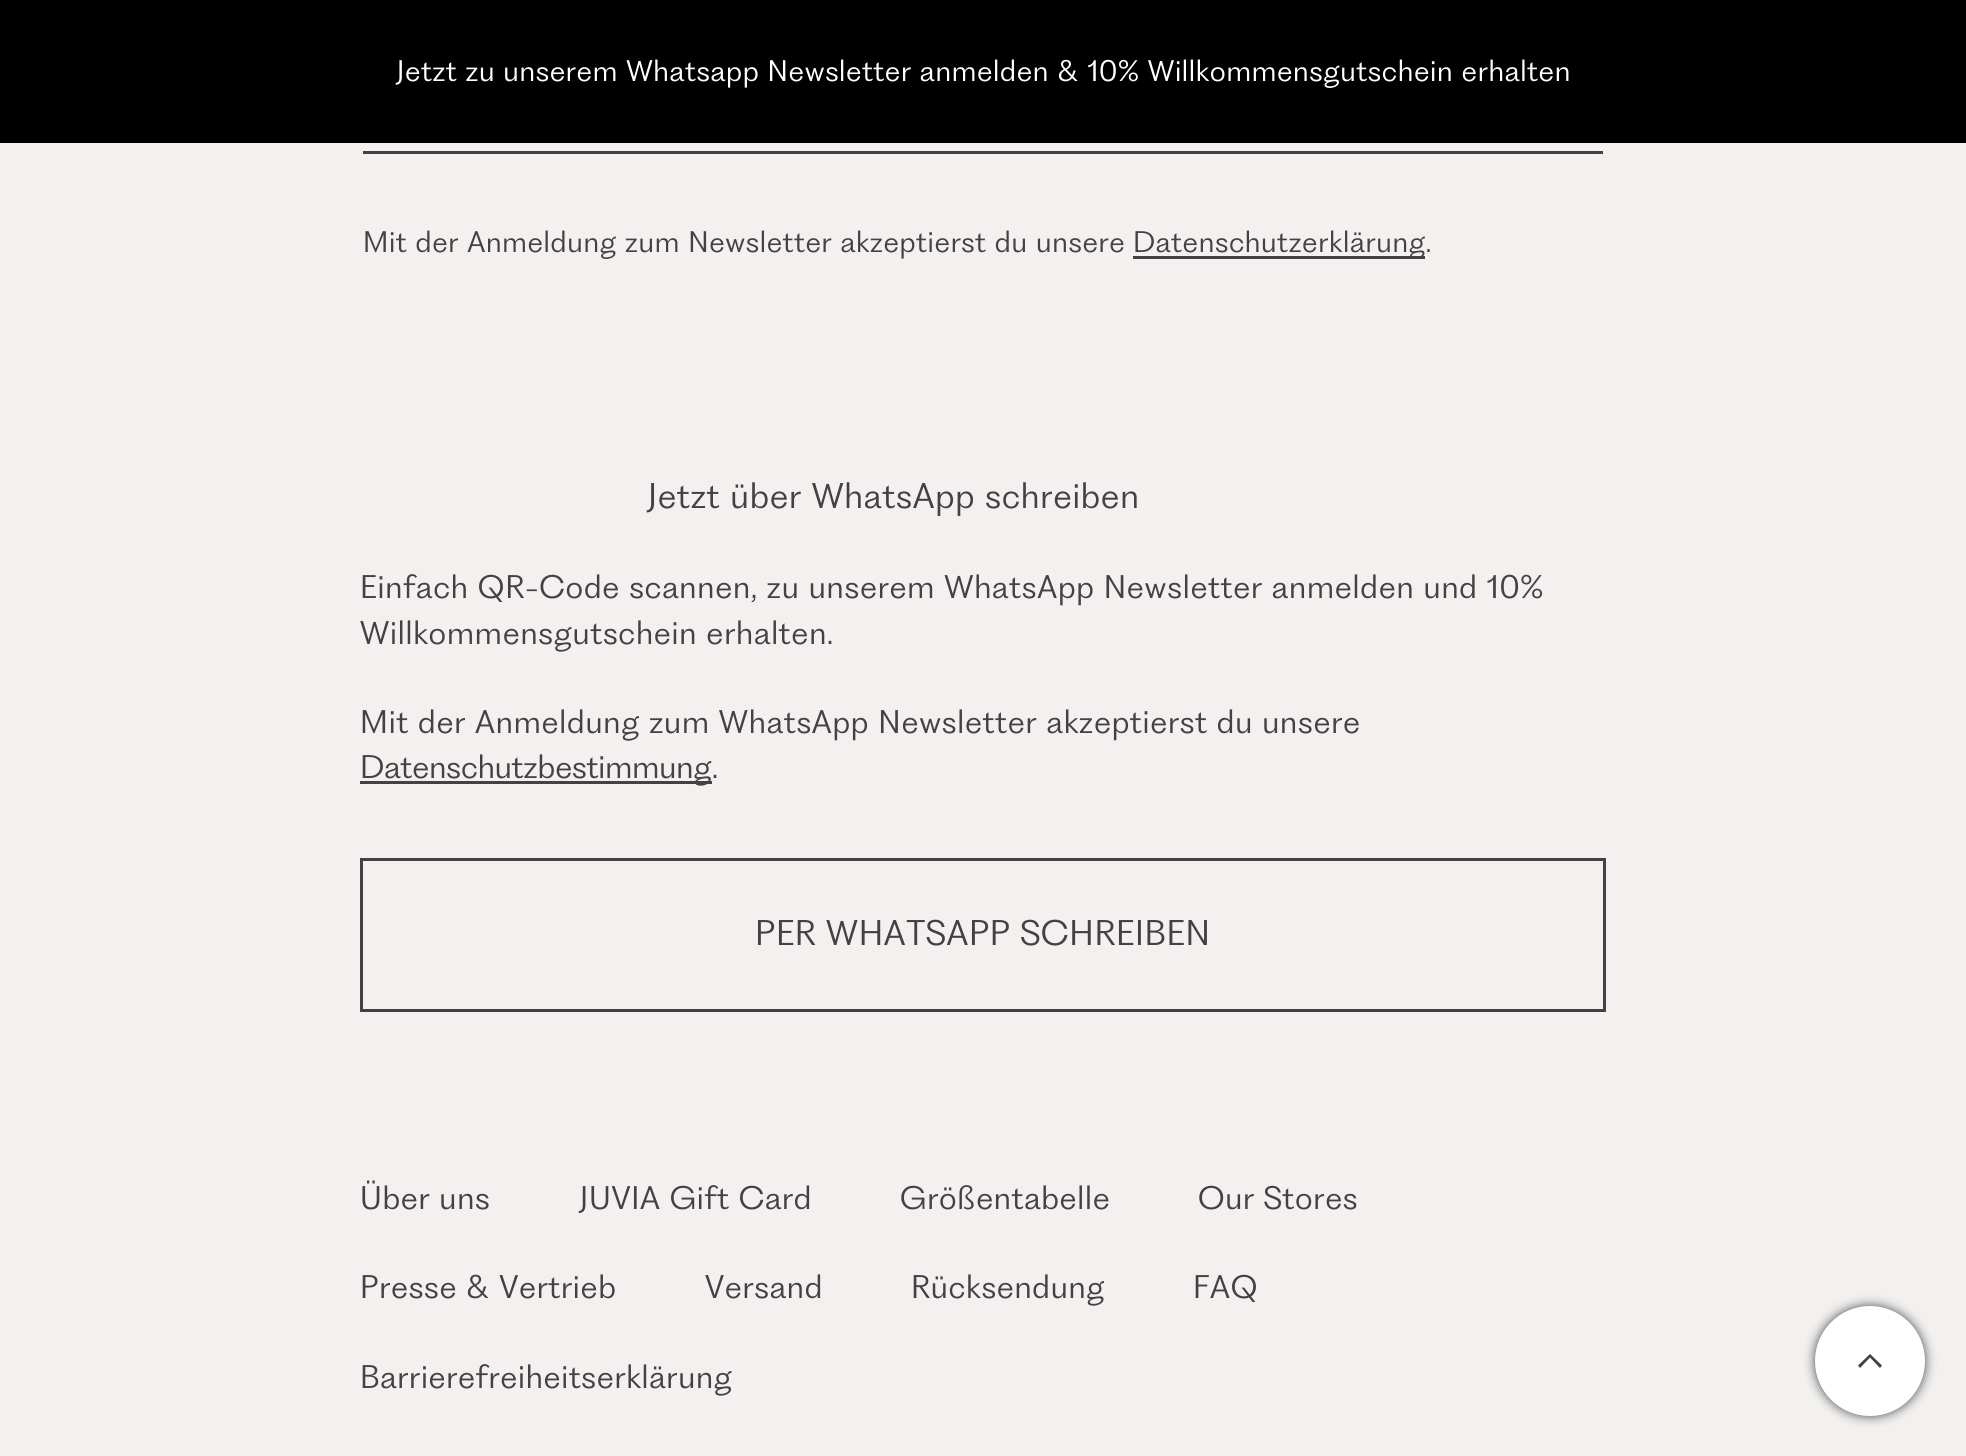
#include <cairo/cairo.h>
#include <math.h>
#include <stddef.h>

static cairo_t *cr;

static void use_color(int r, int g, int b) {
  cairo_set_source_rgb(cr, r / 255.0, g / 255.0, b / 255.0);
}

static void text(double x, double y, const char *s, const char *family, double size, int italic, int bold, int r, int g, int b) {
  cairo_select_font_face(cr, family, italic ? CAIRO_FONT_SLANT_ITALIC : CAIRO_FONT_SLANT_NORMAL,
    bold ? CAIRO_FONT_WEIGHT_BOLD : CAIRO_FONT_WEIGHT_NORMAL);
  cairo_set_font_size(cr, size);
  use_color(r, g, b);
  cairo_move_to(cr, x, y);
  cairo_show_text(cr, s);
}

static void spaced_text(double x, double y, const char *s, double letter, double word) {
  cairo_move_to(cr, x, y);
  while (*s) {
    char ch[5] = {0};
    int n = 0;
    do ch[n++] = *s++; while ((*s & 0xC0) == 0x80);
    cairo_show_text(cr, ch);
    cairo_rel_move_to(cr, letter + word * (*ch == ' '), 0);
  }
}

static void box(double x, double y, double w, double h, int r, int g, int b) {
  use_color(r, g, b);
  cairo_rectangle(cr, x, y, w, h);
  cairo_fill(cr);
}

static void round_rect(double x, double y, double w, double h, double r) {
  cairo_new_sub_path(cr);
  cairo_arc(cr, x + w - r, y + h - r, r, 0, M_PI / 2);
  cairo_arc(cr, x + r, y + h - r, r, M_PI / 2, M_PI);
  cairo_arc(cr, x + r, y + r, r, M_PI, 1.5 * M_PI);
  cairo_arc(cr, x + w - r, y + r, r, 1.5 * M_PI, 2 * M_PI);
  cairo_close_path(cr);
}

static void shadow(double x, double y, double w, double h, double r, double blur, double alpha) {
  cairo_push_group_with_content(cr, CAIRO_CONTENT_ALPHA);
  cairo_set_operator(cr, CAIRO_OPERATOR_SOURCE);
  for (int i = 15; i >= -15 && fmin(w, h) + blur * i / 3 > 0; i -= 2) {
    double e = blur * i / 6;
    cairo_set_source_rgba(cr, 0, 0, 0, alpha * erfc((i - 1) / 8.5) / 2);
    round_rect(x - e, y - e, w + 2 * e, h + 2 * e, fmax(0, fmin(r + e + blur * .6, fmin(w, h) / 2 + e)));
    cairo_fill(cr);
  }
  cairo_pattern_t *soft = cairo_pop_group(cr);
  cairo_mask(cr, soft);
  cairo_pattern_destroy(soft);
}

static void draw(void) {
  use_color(242, 241, 240);
  cairo_paint(cr);
  box(0, 0, 1966, 143, 0, 0, 0);
  box(363, 151, 1240, 3, 69, 65, 66);
  box(1133, 256, 292, 3, 69, 65, 66);
  box(360, 781, 352, 3, 69, 65, 66);
  cairo_rectangle(cr, 361.5, 859.5, 1243, 151);
  cairo_set_line_width(cr, 3);
  cairo_stroke(cr);
  use_color(74, 74, 74);
  shadow(1815, 1306, 110, 110, 55, 5.5, 1);
  use_color(255, 255, 255);
  cairo_arc(cr, 1870, 1361, 55, 0, 2 * M_PI);
  cairo_fill(cr);
  use_color(69, 65, 66);
  cairo_new_path(cr);
  cairo_move_to(cr, 1882, 1365.5);
  cairo_line_to(cr, 1880, 1368);
  cairo_line_to(cr, 1870, 1357.5);
  cairo_line_to(cr, 1860, 1368);
  cairo_line_to(cr, 1858, 1365.5);
  cairo_line_to(cr, 1870, 1354);
  cairo_close_path(cr);
  cairo_fill(cr);
  cairo_select_font_face(cr, "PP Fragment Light", CAIRO_FONT_SLANT_NORMAL, CAIRO_FONT_WEIGHT_NORMAL);
  cairo_set_font_size(cr, 27.5);
  use_color(255, 255, 255);
  spaced_text(396, 81, "Jetzt zu unserem Whatsapp Newsletter anmelden & 10% Willkommensgutschein erhalten", 0.7, 0);
  use_color(69, 65, 66);
  spaced_text(363, 252, "Mit der Anmeldung zum Newsletter akzeptierst du unsere", 0.7, 0);
  spaced_text(1133, 252, "Datenschutzerklärung.", 0.7, 0);
  cairo_set_font_size(cr, 33);
  spaced_text(647, 508, "Jetzt über WhatsApp schreiben", 0.82, 0);
  cairo_set_font_size(cr, 30.25);
  spaced_text(360, 598, "Einfach QR-Code scannen, zu unserem WhatsApp Newsletter anmelden und 10%", 0.82, 0);
  spaced_text(360, 644, "Willkommensgutschein erhalten.", 0.82, 0);
  spaced_text(360, 733, "Mit der Anmeldung zum WhatsApp Newsletter akzeptierst du unsere", 0.82, 0);
  text(360, 778, "Datenschutzbestimmung", "PP Fragment Light", 30.25, 0, 0, 69, 65, 66);
  spaced_text(712, 778, ".", 0.82, 0);
  cairo_set_font_size(cr, 33);
  spaced_text(755, 945, "PER WHATSAPP SCHREIBEN", 0.75, 0);
  cairo_set_font_size(cr, 30.25);
  spaced_text(360, 1209, "Über uns", 0.75, 0);
  spaced_text(579, 1209, "JUVIA Gift Card", 0.75, 0);
  spaced_text(900, 1209, "Größentabelle", 0.75, 0);
  spaced_text(1198, 1209, "Our Stores", 0.75, 0);
  spaced_text(360, 1298, "Presse & Vertrieb", 0.75, 0);
  spaced_text(705, 1298, "Versand", 0.75, 0);
  spaced_text(911, 1298, "Rücksendung", 0.75, 0);
  spaced_text(1193, 1298, "FAQ", 0.75, 0);
  spaced_text(360, 1388, "Barrierefreiheitserklärung", 0.75, 0);
}

int main(void) {
  cairo_surface_t *surface = cairo_image_surface_create(CAIRO_FORMAT_RGB24, 1966, 1456);
  cr = cairo_create(surface);
  cairo_font_options_t *options = cairo_font_options_create();
  cairo_font_options_set_hint_metrics(options, CAIRO_HINT_METRICS_OFF);
  cairo_font_options_set_hint_style(options, CAIRO_HINT_STYLE_NONE);
  cairo_set_font_options(cr, options);
  cairo_set_miter_limit(cr, 4);
  draw();
  cairo_surface_write_to_png(surface, "out.png");
  cairo_font_options_destroy(options);
  cairo_destroy(cr);
  cairo_surface_destroy(surface);
  return 0;
}
